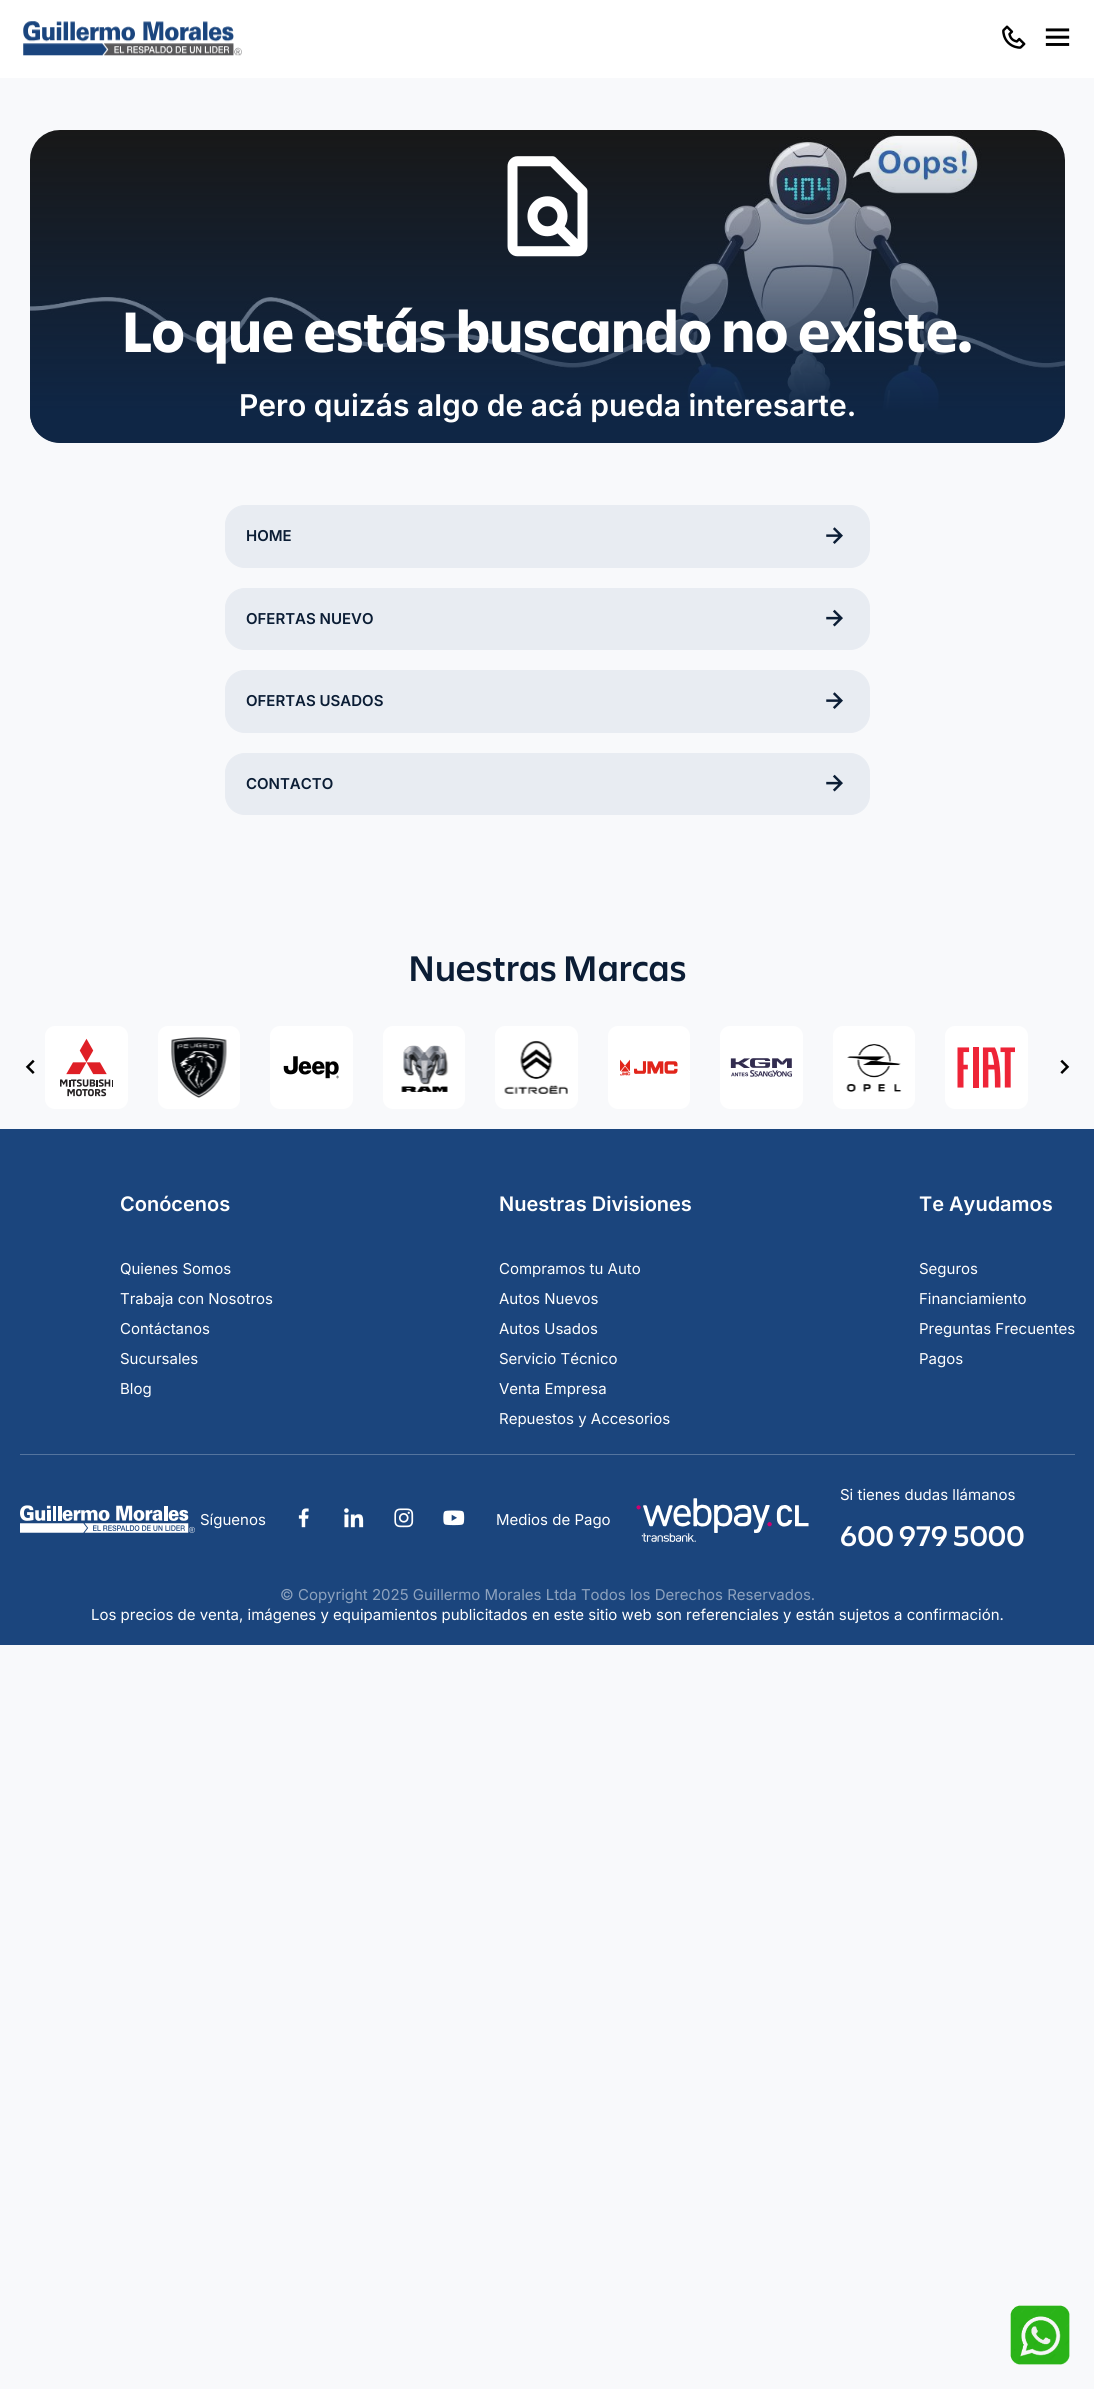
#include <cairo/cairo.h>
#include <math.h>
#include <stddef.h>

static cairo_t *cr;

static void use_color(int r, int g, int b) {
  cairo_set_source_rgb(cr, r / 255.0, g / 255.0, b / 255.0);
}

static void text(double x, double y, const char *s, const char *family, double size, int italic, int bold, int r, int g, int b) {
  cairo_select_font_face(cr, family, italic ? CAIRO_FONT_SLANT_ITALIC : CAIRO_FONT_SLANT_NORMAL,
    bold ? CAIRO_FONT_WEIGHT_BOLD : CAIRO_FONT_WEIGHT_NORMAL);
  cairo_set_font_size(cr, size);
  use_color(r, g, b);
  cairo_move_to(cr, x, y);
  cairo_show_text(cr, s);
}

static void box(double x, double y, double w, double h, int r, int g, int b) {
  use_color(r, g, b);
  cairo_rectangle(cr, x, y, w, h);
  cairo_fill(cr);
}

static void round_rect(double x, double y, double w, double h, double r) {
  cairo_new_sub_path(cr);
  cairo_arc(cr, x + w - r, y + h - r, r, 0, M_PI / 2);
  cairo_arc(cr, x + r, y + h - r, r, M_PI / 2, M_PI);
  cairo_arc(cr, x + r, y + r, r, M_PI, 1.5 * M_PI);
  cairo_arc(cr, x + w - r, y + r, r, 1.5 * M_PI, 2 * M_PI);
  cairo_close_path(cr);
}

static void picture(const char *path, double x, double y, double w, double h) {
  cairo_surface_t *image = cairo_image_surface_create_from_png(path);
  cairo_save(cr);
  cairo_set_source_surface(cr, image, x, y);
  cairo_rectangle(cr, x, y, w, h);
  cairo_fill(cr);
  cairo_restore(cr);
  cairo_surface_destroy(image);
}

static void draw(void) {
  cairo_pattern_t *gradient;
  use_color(248, 249, 251);
  cairo_paint(cr);
  box(0, 0, 1094, 78, 255, 255, 255);
  picture("img_01.png", 23, 21, 219, 35);
  picture("img_02.png", 1002, 25, 24, 24);
  picture("img_03.png", 1045, 28, 25, 18);
  picture("img_04.png", 30, 130, 1035, 313);
  gradient = cairo_pattern_create_linear(548, 443, 548, 130);
  cairo_pattern_add_color_stop_rgba(gradient, 0.1, 0.059, 0.149, 0.271, 1);
  cairo_pattern_add_color_stop_rgba(gradient, 1, 0.059, 0.149, 0.271, 0);
  cairo_set_source(cr, gradient);
  cairo_pattern_destroy(gradient);
  round_rect(30, 130, 1035, 313, 30);
  cairo_fill(cr);
  picture("img_05.png", 507, 156, 81, 101);
  use_color(232, 236, 242);
  round_rect(225.5, 505.5, 644, 62, 19.5);
  cairo_fill_preserve(cr);
  cairo_set_line_width(cr, 1);
  cairo_stroke(cr);
  picture("img_06.png", 826, 527, 17, 17);
  round_rect(225.5, 588.5, 644, 61, 19.5);
  cairo_fill_preserve(cr);
  cairo_stroke(cr);
  picture("img_07.png", 826, 609, 17, 18);
  round_rect(225.5, 670.5, 644, 62, 19.5);
  cairo_fill_preserve(cr);
  cairo_stroke(cr);
  picture("img_06.png", 826, 692, 17, 17);
  round_rect(225.5, 753.5, 644, 61, 19.5);
  cairo_fill_preserve(cr);
  cairo_stroke(cr);
  picture("img_07.png", 826, 774, 17, 18);
  picture("img_08.png", 25, 1059, 10, 15);
  use_color(255, 255, 255);
  round_rect(45, 1026, 83, 83, 10);
  cairo_fill(cr);
  picture("img_09.png", 60, 1038, 53, 59);
  round_rect(158, 1026, 82, 83, 10);
  cairo_fill(cr);
  picture("img_10.png", 171, 1037, 56, 61);
  round_rect(270, 1026, 83, 83, 10);
  cairo_fill(cr);
  picture("img_11.png", 283, 1056, 56, 23);
  round_rect(383, 1026, 82, 83, 10);
  cairo_fill(cr);
  picture("img_12.png", 401, 1045, 48, 47);
  round_rect(495, 1026, 83, 83, 10);
  cairo_fill(cr);
  picture("img_13.png", 504, 1040, 64, 54);
  round_rect(608, 1026, 82, 83, 10);
  cairo_fill(cr);
  picture("img_14.png", 620, 1059, 58, 17);
  round_rect(720, 1026, 83, 83, 10);
  cairo_fill(cr);
  picture("img_15.png", 730, 1058, 62, 19);
  round_rect(833, 1026, 82, 83, 10);
  cairo_fill(cr);
  picture("img_16.png", 846, 1044, 56, 48);
  round_rect(945, 1026, 83, 83, 10);
  cairo_fill(cr);
  picture("img_17.png", 957, 1047, 58, 41);
  picture("img_18.png", 1060, 1059, 10, 15);
  box(0, 1129, 1094, 516, 27, 69, 125);
  box(20, 1454, 1055, 1, 84, 116, 158);
  picture("img_19.png", 20, 1505, 175, 28);
  picture("img_20.png", 298, 1508, 11, 20);
  picture("img_21.png", 344, 1508, 20, 20);
  picture("img_22.png", 394, 1508, 20, 20);
  picture("img_23.png", 443, 1510, 22, 16);
  picture("img_24.png", 636, 1498, 173, 44);
  picture("img_25.png", 1010, 2305, 60, 60);
  text(122, 352, "Lo que estás buscando no existe.", "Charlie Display", 60, 0, 1, 255, 255, 255);
  text(239, 416, "Pero quizás algo de acá pueda interesarte.", "Inter SemiBold", 30, 0, 0, 255, 255, 255);
  text(246, 541, "HOME", "Inter SemiBold", 15, 0, 0, 11, 29, 53);
  text(246, 624, "OFERTAS NUEVO", "Inter SemiBold", 15, 0, 0, 11, 29, 53);
  text(246, 706, "OFERTAS USADOS", "Inter SemiBold", 15, 0, 0, 11, 29, 53);
  text(246, 789, "CONTACTO", "Inter SemiBold", 15, 0, 0, 11, 29, 53);
  text(408, 981, "Nuestras Marcas", "Charlie Display SemiBold", 37.5, 0, 0, 11, 29, 53);
  text(120, 1211, "Conócenos", "Inter SemiBold", 20, 0, 0, 255, 255, 255);
  text(120, 1274, "Quienes Somos", "Inter", 15, 0, 0, 255, 255, 255);
  text(120, 1304, "Trabaja con Nosotros", "Inter", 15, 0, 0, 255, 255, 255);
  text(120, 1334, "Contáctanos", "Inter", 15, 0, 0, 255, 255, 255);
  text(120, 1364, "Sucursales", "Inter", 15, 0, 0, 255, 255, 255);
  text(120, 1394, "Blog", "Inter", 15, 0, 0, 255, 255, 255);
  text(499, 1211, "Nuestras Divisiones", "Inter SemiBold", 20, 0, 0, 255, 255, 255);
  text(499, 1274, "Compramos tu Auto", "Inter", 15, 0, 0, 255, 255, 255);
  text(499, 1304, "Autos Nuevos", "Inter", 15, 0, 0, 255, 255, 255);
  text(499, 1334, "Autos Usados", "Inter", 15, 0, 0, 255, 255, 255);
  text(499, 1364, "Servicio Técnico", "Inter", 15, 0, 0, 255, 255, 255);
  text(499, 1394, "Venta Empresa", "Inter", 15, 0, 0, 255, 255, 255);
  text(499, 1424, "Repuestos y Accesorios", "Inter", 15, 0, 0, 255, 255, 255);
  text(919, 1211, "Te Ayudamos", "Inter SemiBold", 20, 0, 0, 255, 255, 255);
  text(919, 1274, "Seguros", "Inter", 15, 0, 0, 255, 255, 255);
  text(919, 1304, "Financiamiento", "Inter", 15, 0, 0, 255, 255, 255);
  text(919, 1334, "Preguntas Frecuentes", "Inter", 15, 0, 0, 255, 255, 255);
  text(919, 1364, "Pagos", "Inter", 15, 0, 0, 255, 255, 255);
  text(200, 1525, "Síguenos", "Inter", 15, 0, 0, 255, 255, 255);
  text(496, 1525, "Medios de Pago", "Inter", 15, 0, 0, 255, 255, 255);
  text(840, 1500, "Si tienes dudas llámanos", "Inter", 15, 0, 0, 255, 255, 255);
  text(840, 1546, "600 979 5000", "Charlie Display SemiBold", 30, 0, 0, 255, 255, 255);
  text(280, 1600, "© Copyright 2025 Guillermo Morales Ltda Todos los Derechos Reservados.", "Inter", 15, 0, 0, 141, 162, 190);
  text(91, 1620, "Los precios de venta, imágenes y equipamientos publicitados en este sitio web son referenciales y están sujetos a confirmación.", "Inter", 15, 0, 0, 255, 255, 255);
}

int main(void) {
  cairo_surface_t *surface = cairo_image_surface_create(CAIRO_FORMAT_RGB24, 1094, 2389);
  cr = cairo_create(surface);
  cairo_font_options_t *options = cairo_font_options_create();
  cairo_font_options_set_hint_metrics(options, CAIRO_HINT_METRICS_OFF);
  cairo_font_options_set_hint_style(options, CAIRO_HINT_STYLE_NONE);
  cairo_set_font_options(cr, options);
  cairo_set_miter_limit(cr, 4);
  draw();
  cairo_surface_write_to_png(surface, "out.png");
  cairo_font_options_destroy(options);
  cairo_destroy(cr);
  cairo_surface_destroy(surface);
  return 0;
}
